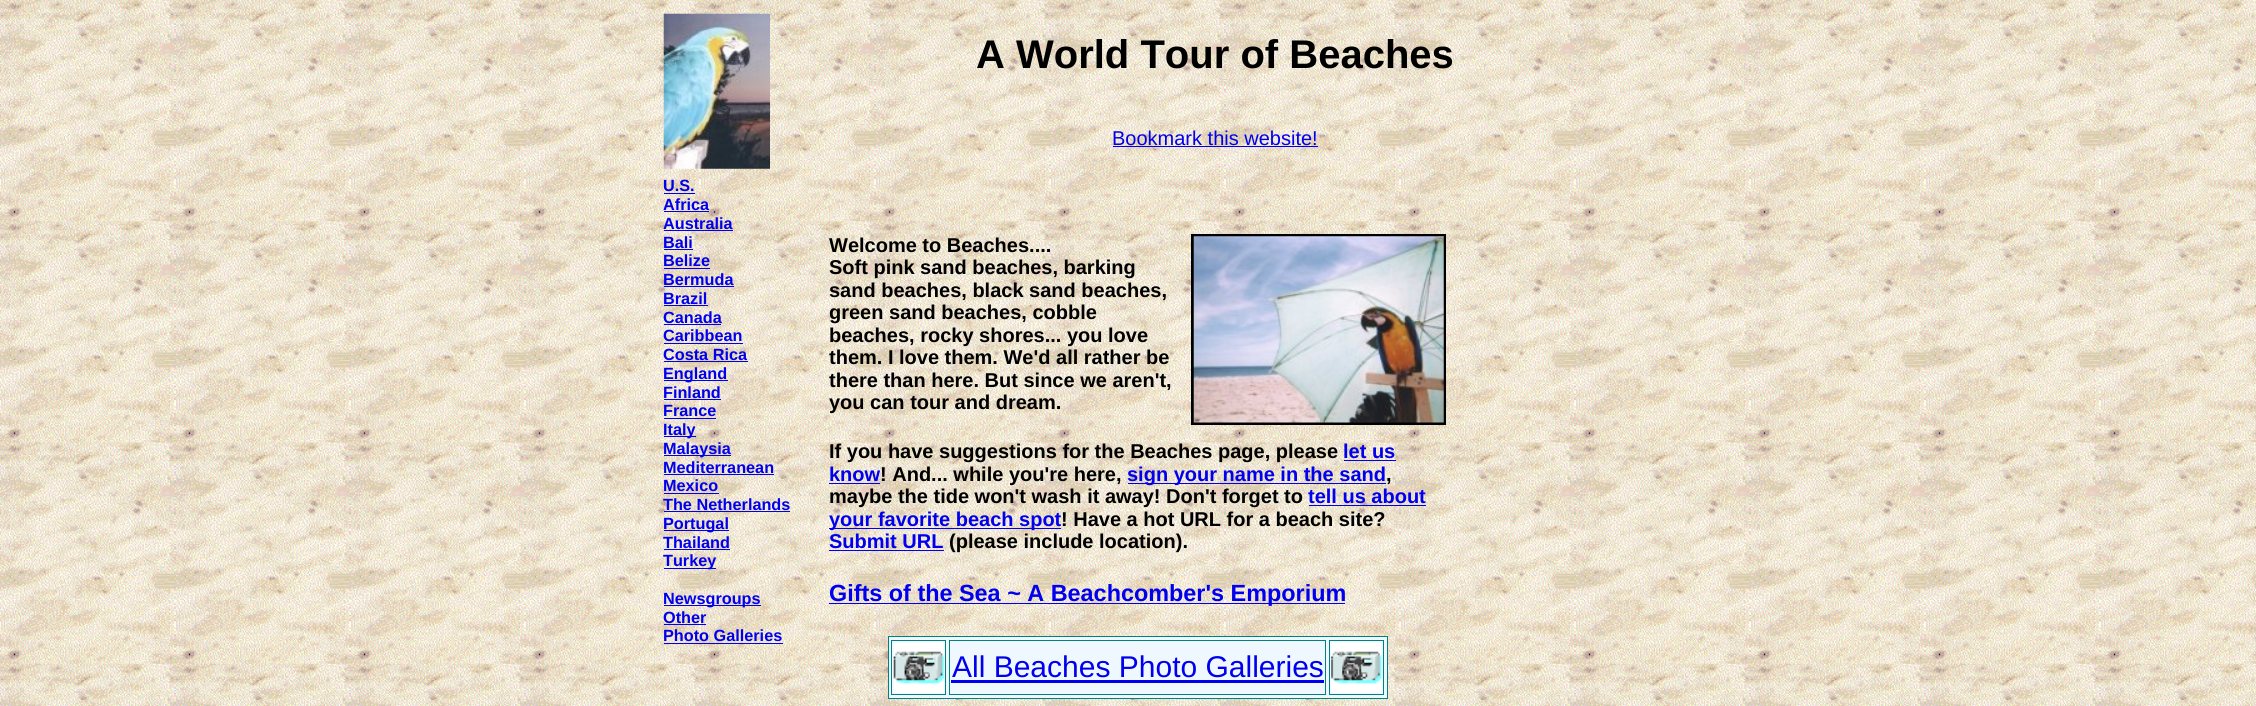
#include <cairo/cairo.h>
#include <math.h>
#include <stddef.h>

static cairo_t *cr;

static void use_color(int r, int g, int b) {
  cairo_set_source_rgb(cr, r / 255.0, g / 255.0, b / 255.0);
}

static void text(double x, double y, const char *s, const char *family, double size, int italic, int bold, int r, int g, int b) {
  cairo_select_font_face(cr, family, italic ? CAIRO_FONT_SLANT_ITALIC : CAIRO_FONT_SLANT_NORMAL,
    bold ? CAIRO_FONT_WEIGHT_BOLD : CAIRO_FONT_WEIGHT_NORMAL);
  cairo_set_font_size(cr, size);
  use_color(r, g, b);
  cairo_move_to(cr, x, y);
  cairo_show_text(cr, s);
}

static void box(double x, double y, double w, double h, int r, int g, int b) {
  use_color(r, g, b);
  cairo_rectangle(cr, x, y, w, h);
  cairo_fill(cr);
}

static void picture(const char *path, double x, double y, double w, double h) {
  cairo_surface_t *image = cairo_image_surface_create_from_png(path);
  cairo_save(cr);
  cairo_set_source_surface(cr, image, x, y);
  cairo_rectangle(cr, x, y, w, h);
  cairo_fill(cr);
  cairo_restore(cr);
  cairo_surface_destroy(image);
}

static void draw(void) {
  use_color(255, 255, 255);
  cairo_paint(cr);
  picture("img_01.png", 0, 0, 2256, 706);
  picture("img_02.png", 663, 13, 107, 156);
  box(1113, 146, 205, 1, 0, 0, 238);
  box(664, 193, 31, 1, 0, 0, 238);
  box(664, 211, 45, 1, 0, 0, 238);
  box(664, 230, 69, 1, 0, 0, 238);
  box(664, 249, 29, 1, 0, 0, 238);
  box(664, 268, 46, 1, 0, 0, 238);
  box(664, 286, 70, 1, 0, 0, 238);
  box(664, 305, 44, 1, 0, 0, 238);
  box(664, 324, 57, 1, 0, 0, 238);
  box(664, 343, 79, 1, 0, 0, 238);
  box(664, 361, 84, 1, 0, 0, 238);
  box(664, 380, 64, 1, 0, 0, 238);
  box(664, 399, 57, 1, 0, 0, 238);
  box(664, 418, 52, 1, 0, 0, 238);
  box(664, 436, 32, 1, 0, 0, 238);
  box(664, 455, 67, 1, 0, 0, 238);
  box(664, 474, 110, 1, 0, 0, 238);
  box(664, 493, 55, 1, 0, 0, 238);
  box(664, 511, 126, 1, 0, 0, 238);
  box(664, 530, 65, 1, 0, 0, 238);
  box(664, 549, 66, 1, 0, 0, 238);
  box(664, 568, 52, 1, 0, 0, 238);
  box(664, 605, 97, 1, 0, 0, 238);
  box(664, 624, 42, 1, 0, 0, 238);
  box(664, 643, 119, 1, 0, 0, 238);
  cairo_rectangle(cr, 1192.5, 235.5, 252, 188);
  use_color(0, 0, 0);
  cairo_set_line_width(cr, 3);
  cairo_stroke(cr);
  picture("img_03.png", 1193, 236, 251, 187);
  box(1344, 460, 52, 1, 0, 0, 238);
  box(829, 483, 51, 1, 0, 0, 238);
  box(1128, 483, 258, 1, 0, 0, 238);
  box(1309, 505, 117, 1, 0, 0, 238);
  box(829, 528, 232, 1, 0, 0, 238);
  box(829, 550, 115, 1, 0, 0, 238);
  box(829, 603, 516, 1, 0, 0, 238);
  use_color(240, 248, 255);
  cairo_rectangle(cr, 888.5, 636.5, 499, 62);
  cairo_fill_preserve(cr);
  use_color(0, 128, 128);
  cairo_set_line_width(cr, 1);
  cairo_stroke(cr);
  cairo_rectangle(cr, 891.5, 640.5, 54, 54);
  cairo_stroke(cr);
  picture("img_04.png", 893, 642, 51, 51);
  cairo_rectangle(cr, 949.5, 640.5, 376, 54);
  cairo_stroke(cr);
  box(951, 680, 373, 3, 0, 0, 238);
  cairo_rectangle(cr, 1329.5, 640.5, 54, 54);
  use_color(0, 128, 128);
  cairo_stroke(cr);
  picture("img_05.png", 1331, 642, 51, 51);
  text(976, 68, "A World Tour of Beaches", "Liberation Sans", 40, 0, 1, 0, 0, 0);
  text(1112, 145, "Bookmark this website!", "Liberation Sans", 20, 0, 0, 0, 0, 238);
  text(663, 191, "U.S.", "Liberation Sans", 16.25, 0, 1, 0, 0, 238);
  text(663, 210, "Africa", "Liberation Sans", 16.25, 0, 1, 0, 0, 238);
  text(663, 229, "Australia", "Liberation Sans", 16.25, 0, 1, 0, 0, 238);
  text(663, 248, "Bali", "Liberation Sans", 16.25, 0, 1, 0, 0, 238);
  text(663, 266, "Belize", "Liberation Sans", 16.25, 0, 1, 0, 0, 238);
  text(663, 285, "Bermuda", "Liberation Sans", 16.25, 0, 1, 0, 0, 238);
  text(663, 304, "Brazil", "Liberation Sans", 16.25, 0, 1, 0, 0, 238);
  text(663, 323, "Canada", "Liberation Sans", 16.25, 0, 1, 0, 0, 238);
  text(663, 341, "Caribbean", "Liberation Sans", 16.25, 0, 1, 0, 0, 238);
  text(663, 360, "Costa Rica", "Liberation Sans", 16.25, 0, 1, 0, 0, 238);
  text(663, 379, "England", "Liberation Sans", 16.25, 0, 1, 0, 0, 238);
  text(663, 398, "Finland", "Liberation Sans", 16.25, 0, 1, 0, 0, 238);
  text(663, 416, "France", "Liberation Sans", 16.25, 0, 1, 0, 0, 238);
  text(663, 435, "Italy", "Liberation Sans", 16.25, 0, 1, 0, 0, 238);
  text(663, 454, "Malaysia", "Liberation Sans", 16.25, 0, 1, 0, 0, 238);
  text(663, 473, "Mediterranean", "Liberation Sans", 16.25, 0, 1, 0, 0, 238);
  text(663, 491, "Mexico", "Liberation Sans", 16.25, 0, 1, 0, 0, 238);
  text(663, 510, "The Netherlands", "Liberation Sans", 16.25, 0, 1, 0, 0, 238);
  text(663, 529, "Portugal", "Liberation Sans", 16.25, 0, 1, 0, 0, 238);
  text(663, 548, "Thailand", "Liberation Sans", 16.25, 0, 1, 0, 0, 238);
  text(663, 566, "Turkey", "Liberation Sans", 16.25, 0, 1, 0, 0, 238);
  text(663, 604, "Newsgroups", "Liberation Sans", 16.25, 0, 1, 0, 0, 238);
  text(663, 623, "Other", "Liberation Sans", 16.25, 0, 1, 0, 0, 238);
  text(663, 641, "Photo Galleries", "Liberation Sans", 16.25, 0, 1, 0, 0, 238);
  text(829, 252, "Welcome to Beaches....", "Liberation Sans", 20, 0, 1, 0, 0, 0);
  text(829, 274, "Soft pink sand beaches, barking", "Liberation Sans", 20, 0, 1, 0, 0, 0);
  text(829, 297, "sand beaches, black sand beaches,", "Liberation Sans", 20, 0, 1, 0, 0, 0);
  text(829, 319, "green sand beaches, cobble", "Liberation Sans", 20, 0, 1, 0, 0, 0);
  text(829, 342, "beaches, rocky shores... you love", "Liberation Sans", 20, 0, 1, 0, 0, 0);
  text(829, 364, "them. I love them. We'd all rather be", "Liberation Sans", 20, 0, 1, 0, 0, 0);
  text(829, 387, "there than here. But since we aren't,", "Liberation Sans", 20, 0, 1, 0, 0, 0);
  text(829, 409, "you can tour and dream.", "Liberation Sans", 20, 0, 1, 0, 0, 0);
  text(829, 458, "If you have suggestions for the Beaches page, please", "Liberation Sans", 20, 0, 1, 0, 0, 0);
  text(1343, 458, "let us", "Liberation Sans", 20, 0, 1, 0, 0, 238);
  text(829, 481, "know", "Liberation Sans", 20, 0, 1, 0, 0, 238);
  text(880, 481, "! And... while you're here,", "Liberation Sans", 20, 0, 1, 0, 0, 0);
  text(1127, 481, "sign your name in the sand", "Liberation Sans", 20, 0, 1, 0, 0, 238);
  text(1386, 481, ",", "Liberation Sans", 20, 0, 1, 0, 0, 0);
  text(829, 503, "maybe the tide won't wash it away! Don't forget to", "Liberation Sans", 20, 0, 1, 0, 0, 0);
  text(1308, 503, "tell us about", "Liberation Sans", 20, 0, 1, 0, 0, 238);
  text(829, 526, "your favorite beach spot", "Liberation Sans", 20, 0, 1, 0, 0, 238);
  text(1061, 526, "! Have a hot URL for a beach site?", "Liberation Sans", 20, 0, 1, 0, 0, 0);
  text(829, 548, "Submit URL", "Liberation Sans", 20, 0, 1, 0, 0, 238);
  text(949, 548, "(please include location).", "Liberation Sans", 20, 0, 1, 0, 0, 0);
  text(829, 601, "Gifts of the Sea ~ A Beachcomber's Emporium", "Liberation Sans", 23.4, 0, 1, 0, 0, 238);
  text(952, 677, "All Beaches Photo Galleries", "Liberation Sans", 30, 0, 0, 0, 0, 238);
}

int main(void) {
  cairo_surface_t *surface = cairo_image_surface_create(CAIRO_FORMAT_RGB24, 2256, 706);
  cr = cairo_create(surface);
  cairo_font_options_t *options = cairo_font_options_create();
  cairo_font_options_set_hint_metrics(options, CAIRO_HINT_METRICS_OFF);
  cairo_font_options_set_hint_style(options, CAIRO_HINT_STYLE_NONE);
  cairo_set_font_options(cr, options);
  cairo_set_miter_limit(cr, 4);
  draw();
  cairo_surface_write_to_png(surface, "out.png");
  cairo_font_options_destroy(options);
  cairo_destroy(cr);
  cairo_surface_destroy(surface);
  return 0;
}
